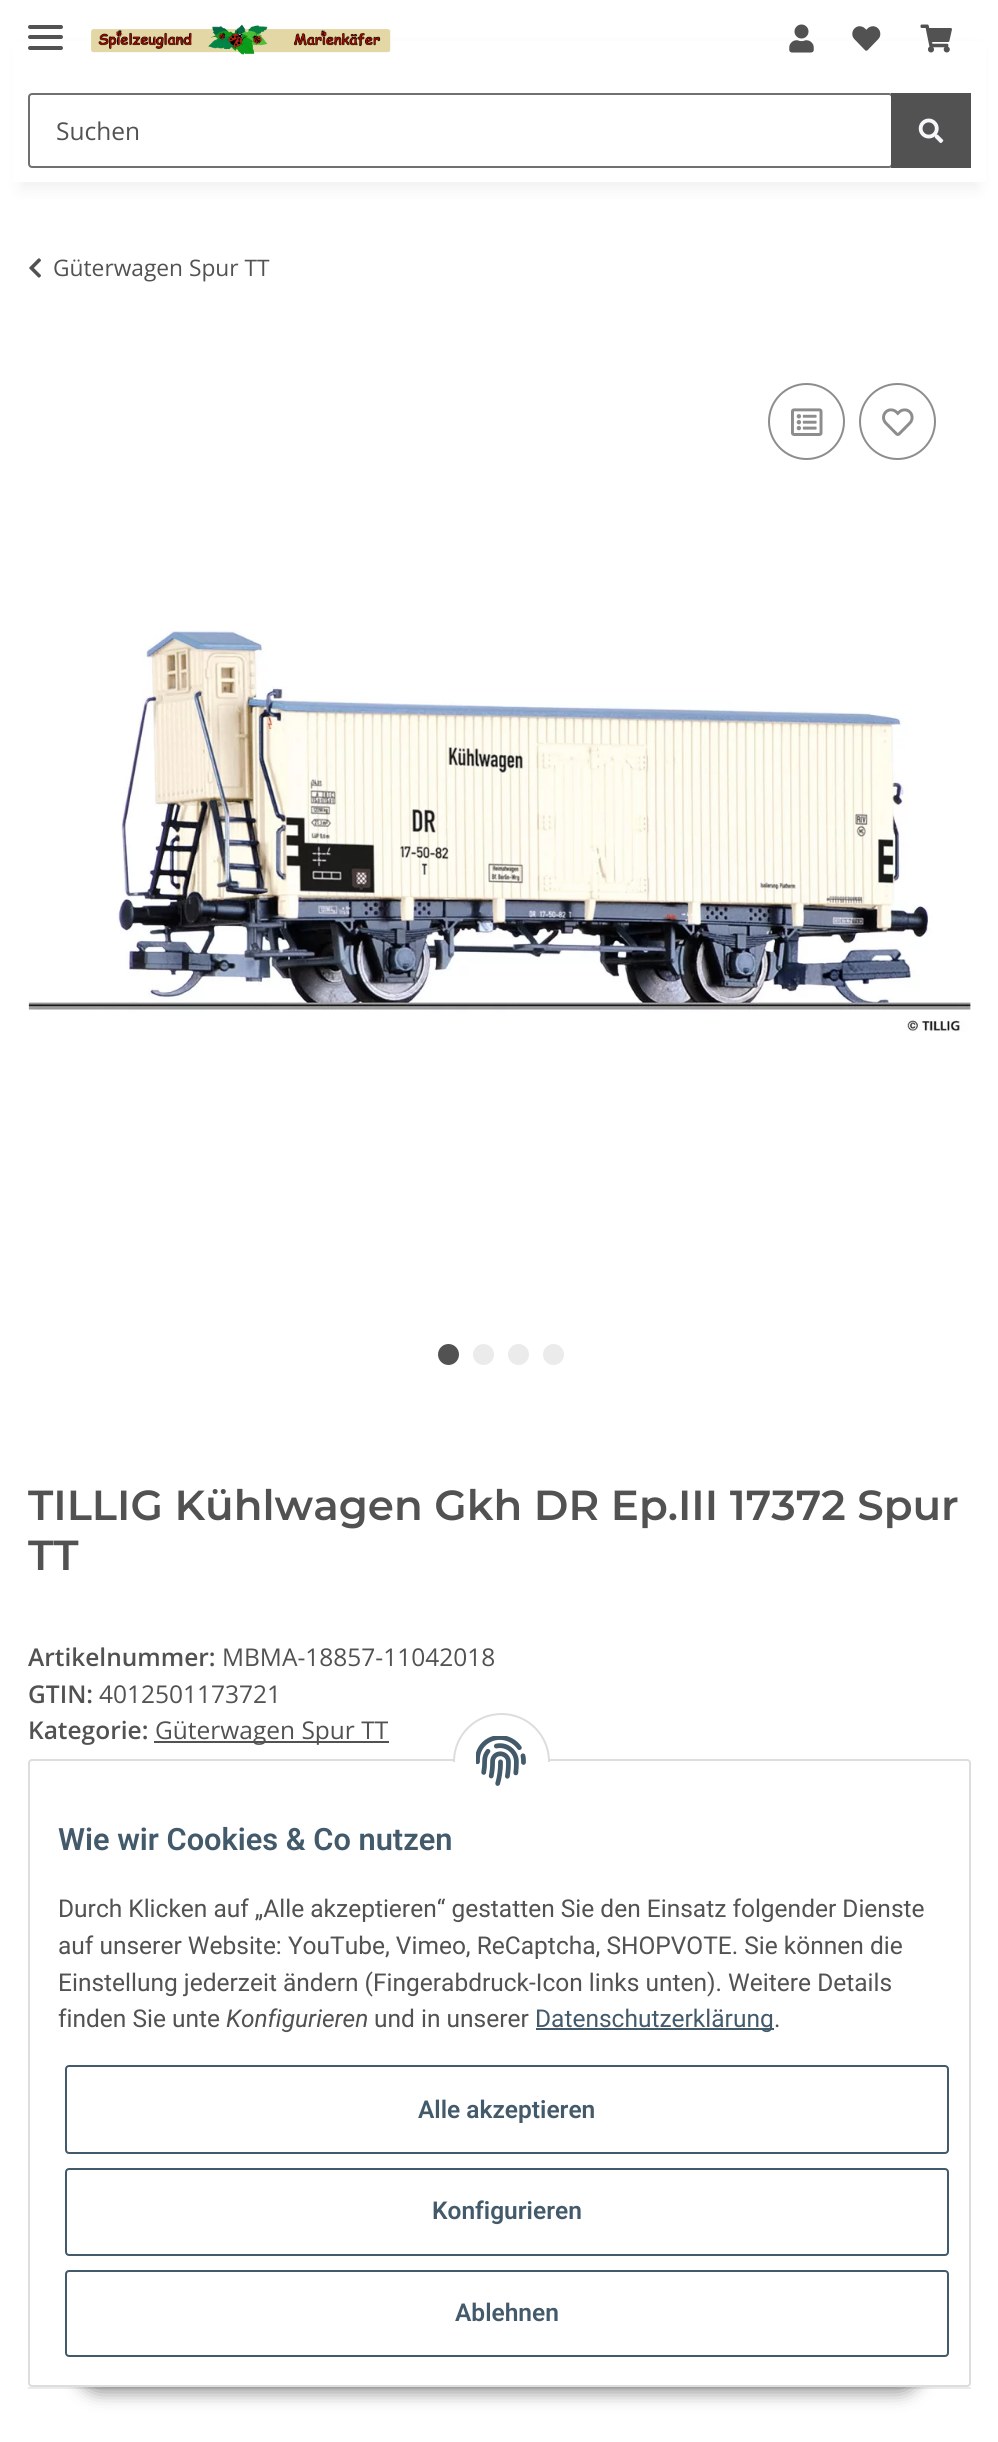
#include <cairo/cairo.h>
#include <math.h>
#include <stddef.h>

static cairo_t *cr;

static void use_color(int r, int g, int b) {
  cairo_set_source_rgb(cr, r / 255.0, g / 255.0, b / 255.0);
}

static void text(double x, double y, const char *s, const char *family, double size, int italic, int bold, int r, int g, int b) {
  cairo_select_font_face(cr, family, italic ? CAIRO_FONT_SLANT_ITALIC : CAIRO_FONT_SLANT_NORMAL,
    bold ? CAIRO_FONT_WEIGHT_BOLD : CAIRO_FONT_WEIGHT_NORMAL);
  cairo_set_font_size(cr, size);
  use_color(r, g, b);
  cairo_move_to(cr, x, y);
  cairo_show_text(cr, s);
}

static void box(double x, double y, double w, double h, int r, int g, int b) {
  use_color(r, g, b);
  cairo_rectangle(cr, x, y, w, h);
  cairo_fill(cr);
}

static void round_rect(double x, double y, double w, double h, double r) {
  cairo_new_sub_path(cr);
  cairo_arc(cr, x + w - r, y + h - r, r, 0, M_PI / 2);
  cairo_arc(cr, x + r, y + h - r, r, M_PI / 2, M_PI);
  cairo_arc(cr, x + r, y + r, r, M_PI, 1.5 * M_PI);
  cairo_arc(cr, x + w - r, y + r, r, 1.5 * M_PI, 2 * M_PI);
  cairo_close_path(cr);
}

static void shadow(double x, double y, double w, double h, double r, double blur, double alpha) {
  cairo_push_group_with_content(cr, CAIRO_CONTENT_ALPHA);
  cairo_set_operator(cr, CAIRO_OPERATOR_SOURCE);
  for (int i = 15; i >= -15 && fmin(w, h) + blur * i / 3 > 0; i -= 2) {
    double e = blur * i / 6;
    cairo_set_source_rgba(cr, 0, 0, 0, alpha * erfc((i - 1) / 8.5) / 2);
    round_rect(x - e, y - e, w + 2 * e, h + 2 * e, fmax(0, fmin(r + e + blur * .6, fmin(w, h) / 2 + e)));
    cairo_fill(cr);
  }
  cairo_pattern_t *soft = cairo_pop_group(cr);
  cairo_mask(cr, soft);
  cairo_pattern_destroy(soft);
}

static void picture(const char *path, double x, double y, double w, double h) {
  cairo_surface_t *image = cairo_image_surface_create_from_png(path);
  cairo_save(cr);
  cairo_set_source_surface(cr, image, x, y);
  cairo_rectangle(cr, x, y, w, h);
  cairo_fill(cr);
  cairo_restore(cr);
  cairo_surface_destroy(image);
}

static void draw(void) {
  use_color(255, 255, 255);
  cairo_paint(cr);
  use_color(0, 0, 0);
  shadow(21, 49, 957, 140, 0, 8, 0.06);
  box(13, 41, 973, 141, 255, 255, 255);
  use_color(82, 82, 82);
  round_rect(28, 35, 35, 4, 2);
  cairo_fill(cr);
  round_rect(28, 25, 35, 4, 2);
  cairo_fill(cr);
  round_rect(28, 46, 35, 4, 2);
  cairo_fill(cr);
  picture("img_01.png", 91, 24, 300, 31);
  picture("img_02.png", 789, 24, 25, 29);
  picture("img_03.png", 852, 26, 29, 25);
  picture("img_04.png", 920, 24, 32, 29);
  round_rect(29, 94, 863, 73, 3);
  use_color(112, 112, 112);
  cairo_stroke(cr);
  box(891, 93, 80, 75, 82, 82, 82);
  picture("img_05.png", 918, 118, 26, 25);
  picture("img_06.png", 29, 258, 12, 20);
  cairo_arc(cr, 806.5, 421.5, 37.5, 0, 2 * M_PI);
  use_color(141, 141, 141);
  cairo_stroke(cr);
  picture("img_07.png", 791, 408, 32, 28);
  cairo_arc(cr, 897.5, 421.5, 37.5, 0, 2 * M_PI);
  cairo_stroke(cr);
  picture("img_08.png", 882, 408, 32, 28);
  picture("img_09.png", 28, 630, 943, 402);
  use_color(82, 82, 82);
  cairo_arc(cr, 448.5, 1354.5, 8.5, 0, 2 * M_PI);
  cairo_fill_preserve(cr);
  cairo_set_line_width(cr, 4);
  cairo_stroke(cr);
  use_color(235, 235, 235);
  cairo_arc(cr, 483.5, 1354.5, 8.5, 0, 2 * M_PI);
  cairo_fill_preserve(cr);
  cairo_stroke(cr);
  cairo_arc(cr, 518.5, 1354.5, 8.5, 0, 2 * M_PI);
  cairo_fill_preserve(cr);
  cairo_stroke(cr);
  cairo_arc(cr, 553.5, 1354.5, 8.5, 0, 2 * M_PI);
  cairo_fill_preserve(cr);
  cairo_stroke(cr);
  box(154, 1741, 235, 2, 82, 82, 82);
  box(28, 2387, 943, 2, 235, 235, 235);
  use_color(0, 0, 0);
  shadow(77, 2336, 845, 56, 28, 9, 0.45);
  use_color(255, 255, 255);
  round_rect(29, 1760, 941, 626, 3);
  cairo_fill_preserve(cr);
  use_color(221, 221, 221);
  cairo_set_line_width(cr, 2);
  cairo_stroke(cr);
  use_color(255, 255, 255);
  cairo_arc(cr, 501.5, 1761.5, 47.5, 0, 2 * M_PI);
  cairo_fill_preserve(cr);
  use_color(221, 221, 221);
  cairo_stroke(cr);
  box(453, 1762, 97, 48, 255, 255, 255);
  picture("img_10.png", 476, 1736, 50, 50);
  box(536, 2028, 238, 2, 67, 90, 107);
  round_rect(66, 2066, 882, 87, 3);
  cairo_stroke(cr);
  round_rect(66, 2169, 882, 86, 3);
  cairo_stroke(cr);
  round_rect(66, 2271, 882, 85, 3);
  cairo_stroke(cr);
  text(56, 140, "Suchen", "Open Sans", 24.5, 0, 0, 82, 82, 82);
  text(53, 276, "Güterwagen Spur TT", "Open Sans", 22.75, 0, 0, 82, 82, 82);
  text(28, 1520, "TILLIG Kühlwagen Gkh DR Ep.III 17372 Spur", "Montserrat SemiBold", 42, 0, 0, 82, 82, 82);
  text(28, 1570, "TT", "Montserrat SemiBold", 42, 0, 0, 82, 82, 82);
  text(28, 1666, "Artikelnummer:", "Open Sans SemiBold", 24.5, 0, 0, 82, 82, 82);
  text(222, 1666, "MBMA-18857-11042018", "Open Sans", 24.5, 0, 0, 82, 82, 82);
  text(28, 1703, "GTIN:", "Open Sans SemiBold", 24.5, 0, 0, 82, 82, 82);
  text(99, 1703, "4012501173721", "Open Sans", 24.5, 0, 0, 82, 82, 82);
  text(28, 1739, "Kategorie:", "Open Sans SemiBold", 24.5, 0, 0, 82, 82, 82);
  text(155, 1739, "Güterwagen Spur TT", "Open Sans", 24.5, 0, 0, 82, 82, 82);
  text(58, 1850, "Wie wir Cookies & Co nutzen", "Roboto SemiBold", 30.75, 0, 0, 67, 90, 107);
  text(58, 1917, "Durch Klicken auf „Alle akzeptieren“ gestatten Sie den Einsatz folgender Dienste", "Roboto", 24.5, 0, 0, 82, 82, 82);
  text(58, 1954, "auf unserer Website: YouTube, Vimeo, ReCaptcha, SHOPVOTE. Sie können die", "Roboto", 24.5, 0, 0, 82, 82, 82);
  text(58, 1991, "Einstellung jederzeit ändern (Fingerabdruck-Icon links unten). Weitere Details", "Roboto", 24.5, 0, 0, 82, 82, 82);
  text(58, 2027, "finden Sie unte", "Roboto", 24.5, 0, 0, 82, 82, 82);
  text(226, 2027, "Konfigurieren", "Roboto", 24.5, 1, 0, 82, 82, 82);
  text(374, 2027, "und in unserer", "Roboto", 24.5, 0, 0, 82, 82, 82);
  text(535, 2027, "Datenschutzerklärung", "Roboto", 24.5, 0, 0, 67, 90, 107);
  text(774, 2027, ".", "Roboto", 24.5, 0, 0, 82, 82, 82);
  text(418, 2118, "Alle akzeptieren", "Roboto SemiBold", 24.5, 0, 0, 67, 90, 107);
  text(432, 2219, "Konfigurieren", "Roboto SemiBold", 24.5, 0, 0, 67, 90, 107);
  text(455, 2321, "Ablehnen", "Roboto SemiBold", 24.5, 0, 0, 67, 90, 107);
}

int main(void) {
  cairo_surface_t *surface = cairo_image_surface_create(CAIRO_FORMAT_RGB24, 998, 2442);
  cr = cairo_create(surface);
  cairo_font_options_t *options = cairo_font_options_create();
  cairo_font_options_set_hint_metrics(options, CAIRO_HINT_METRICS_OFF);
  cairo_font_options_set_hint_style(options, CAIRO_HINT_STYLE_NONE);
  cairo_set_font_options(cr, options);
  cairo_set_miter_limit(cr, 4);
  draw();
  cairo_surface_write_to_png(surface, "out.png");
  cairo_font_options_destroy(options);
  cairo_destroy(cr);
  cairo_surface_destroy(surface);
  return 0;
}
